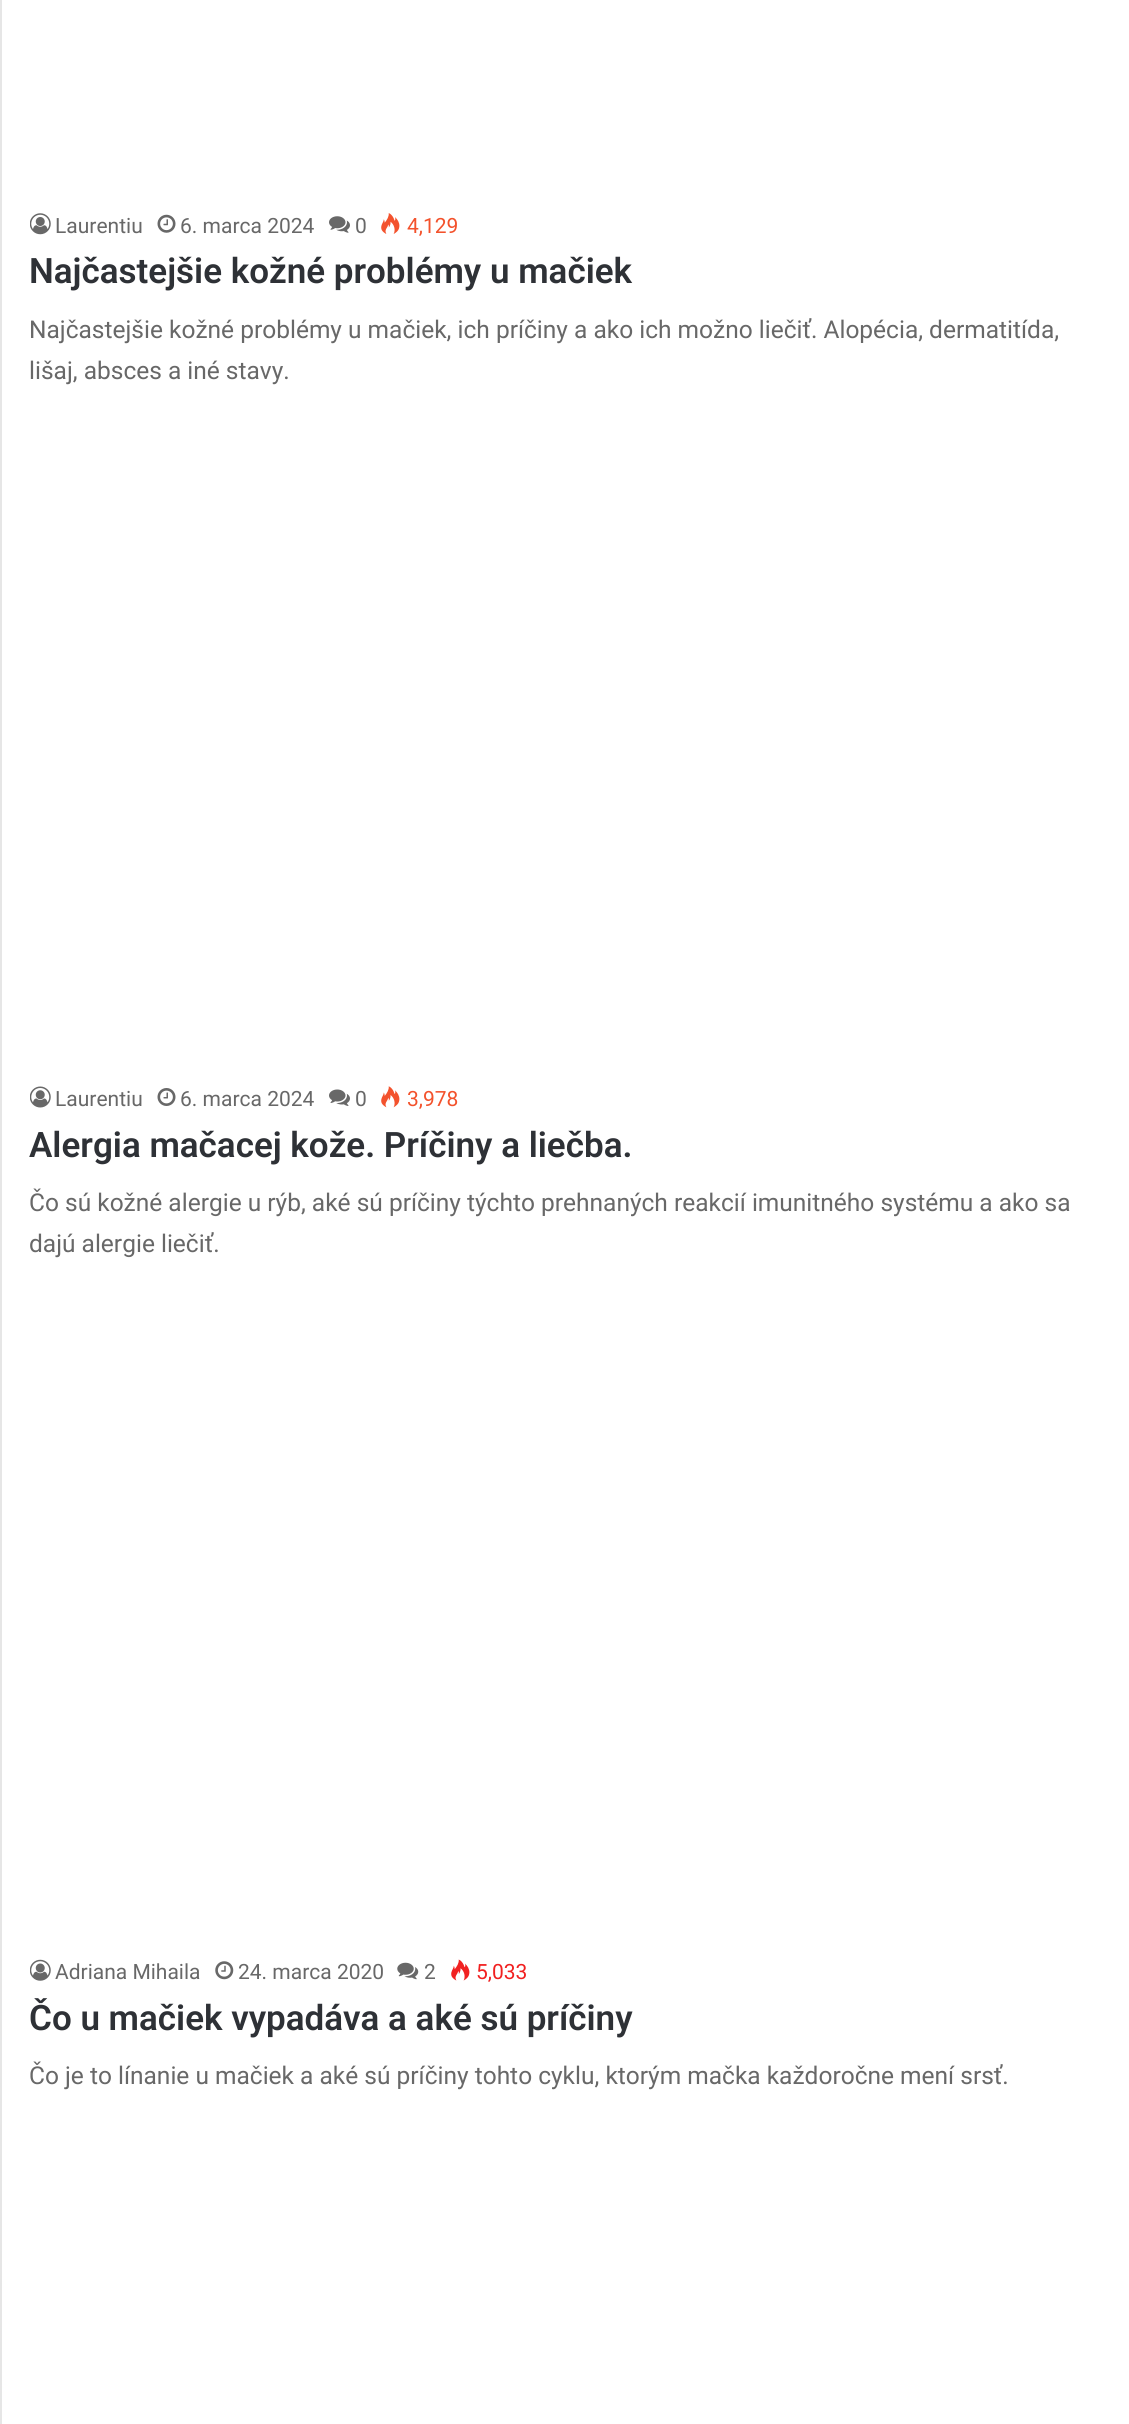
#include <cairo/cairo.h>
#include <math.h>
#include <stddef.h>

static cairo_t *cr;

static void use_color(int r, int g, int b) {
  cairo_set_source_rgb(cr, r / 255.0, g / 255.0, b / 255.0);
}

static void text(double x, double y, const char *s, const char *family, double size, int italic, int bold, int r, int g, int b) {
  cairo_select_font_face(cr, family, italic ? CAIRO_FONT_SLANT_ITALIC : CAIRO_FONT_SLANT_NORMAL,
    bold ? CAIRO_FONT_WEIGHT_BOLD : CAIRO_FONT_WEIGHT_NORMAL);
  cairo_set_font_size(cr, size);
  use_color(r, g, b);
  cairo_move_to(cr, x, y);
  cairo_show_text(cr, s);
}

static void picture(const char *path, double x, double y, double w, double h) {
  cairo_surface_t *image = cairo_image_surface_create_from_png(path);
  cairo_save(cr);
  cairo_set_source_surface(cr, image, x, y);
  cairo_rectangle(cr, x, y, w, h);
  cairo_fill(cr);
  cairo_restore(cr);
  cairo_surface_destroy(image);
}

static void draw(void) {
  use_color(255, 255, 255);
  cairo_paint(cr);
  cairo_rectangle(cr, 1, -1, 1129, 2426);
  use_color(230, 230, 230);
  cairo_stroke(cr);
  picture("img_01.png", 30, 213, 21, 22);
  picture("img_02.png", 157, 214, 19, 19);
  picture("img_03.png", 329, 216, 21, 17);
  picture("img_04.png", 381, 213, 19, 21);
  picture("img_05.png", 30, 1086, 21, 22);
  picture("img_06.png", 157, 1088, 19, 18);
  picture("img_07.png", 329, 1089, 21, 17);
  picture("img_08.png", 381, 1086, 19, 22);
  picture("img_09.png", 30, 1959, 21, 22);
  picture("img_10.png", 215, 1961, 19, 19);
  picture("img_11.png", 397, 1962, 22, 18);
  picture("img_12.png", 451, 1959, 19, 22);
  text(55, 233, "Laurentiu", "Roboto", 21, 0, 0, 104, 104, 104);
  text(180, 233, "6. marca 2024", "Roboto", 21, 0, 0, 104, 104, 104);
  text(355, 233, "0", "Roboto", 21, 0, 0, 104, 104, 104);
  text(407, 233, "4,129", "Roboto", 21, 0, 0, 243, 82, 44);
  text(29, 283, "Najčastejšie kožné problémy u mačiek", "Roboto SemiBold", 35, 0, 0, 46, 49, 54);
  text(29, 338, "Najčastejšie kožné problémy u mačiek, ich príčiny a ako ich možno liečiť. Alopécia, dermatitída,", "Roboto", 24.5, 0, 0, 104, 104, 104);
  text(29, 379, "lišaj, absces a iné stavy.", "Roboto", 24.5, 0, 0, 104, 104, 104);
  text(55, 1106, "Laurentiu", "Roboto", 21, 0, 0, 104, 104, 104);
  text(180, 1106, "6. marca 2024", "Roboto", 21, 0, 0, 104, 104, 104);
  text(355, 1106, "0", "Roboto", 21, 0, 0, 104, 104, 104);
  text(407, 1106, "3,978", "Roboto", 21, 0, 0, 243, 82, 44);
  text(29, 1157, "Alergia mačacej kože. Príčiny a liečba.", "Roboto SemiBold", 35, 0, 0, 46, 49, 54);
  text(29, 1211, "Čo sú kožné alergie u rýb, aké sú príčiny týchto prehnaných reakcií imunitného systému a ako sa", "Roboto", 24.5, 0, 0, 104, 104, 104);
  text(29, 1252, "dajú alergie liečiť.", "Roboto", 24.5, 0, 0, 104, 104, 104);
  text(55, 1979, "Adriana Mihaila", "Roboto", 21, 0, 0, 104, 104, 104);
  text(238, 1979, "24. marca 2020", "Roboto", 21, 0, 0, 104, 104, 104);
  text(424, 1979, "2", "Roboto", 21, 0, 0, 104, 104, 104);
  text(476, 1979, "5,033", "Roboto", 21, 0, 0, 241, 32, 32);
  text(29, 2030, "Čo u mačiek vypadáva a aké sú príčiny", "Roboto SemiBold", 35, 0, 0, 46, 49, 54);
  text(29, 2084, "Čo je to línanie u mačiek a aké sú príčiny tohto cyklu, ktorým mačka každoročne mení srsť.", "Roboto", 24.5, 0, 0, 104, 104, 104);
}

int main(void) {
  cairo_surface_t *surface = cairo_image_surface_create(CAIRO_FORMAT_RGB24, 1129, 2424);
  cr = cairo_create(surface);
  cairo_font_options_t *options = cairo_font_options_create();
  cairo_font_options_set_hint_metrics(options, CAIRO_HINT_METRICS_OFF);
  cairo_font_options_set_hint_style(options, CAIRO_HINT_STYLE_NONE);
  cairo_set_font_options(cr, options);
  cairo_set_miter_limit(cr, 4);
  draw();
  cairo_surface_write_to_png(surface, "out.png");
  cairo_font_options_destroy(options);
  cairo_destroy(cr);
  cairo_surface_destroy(surface);
  return 0;
}
